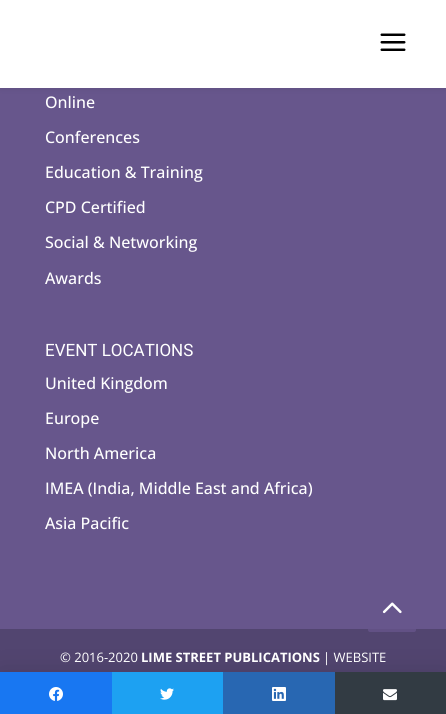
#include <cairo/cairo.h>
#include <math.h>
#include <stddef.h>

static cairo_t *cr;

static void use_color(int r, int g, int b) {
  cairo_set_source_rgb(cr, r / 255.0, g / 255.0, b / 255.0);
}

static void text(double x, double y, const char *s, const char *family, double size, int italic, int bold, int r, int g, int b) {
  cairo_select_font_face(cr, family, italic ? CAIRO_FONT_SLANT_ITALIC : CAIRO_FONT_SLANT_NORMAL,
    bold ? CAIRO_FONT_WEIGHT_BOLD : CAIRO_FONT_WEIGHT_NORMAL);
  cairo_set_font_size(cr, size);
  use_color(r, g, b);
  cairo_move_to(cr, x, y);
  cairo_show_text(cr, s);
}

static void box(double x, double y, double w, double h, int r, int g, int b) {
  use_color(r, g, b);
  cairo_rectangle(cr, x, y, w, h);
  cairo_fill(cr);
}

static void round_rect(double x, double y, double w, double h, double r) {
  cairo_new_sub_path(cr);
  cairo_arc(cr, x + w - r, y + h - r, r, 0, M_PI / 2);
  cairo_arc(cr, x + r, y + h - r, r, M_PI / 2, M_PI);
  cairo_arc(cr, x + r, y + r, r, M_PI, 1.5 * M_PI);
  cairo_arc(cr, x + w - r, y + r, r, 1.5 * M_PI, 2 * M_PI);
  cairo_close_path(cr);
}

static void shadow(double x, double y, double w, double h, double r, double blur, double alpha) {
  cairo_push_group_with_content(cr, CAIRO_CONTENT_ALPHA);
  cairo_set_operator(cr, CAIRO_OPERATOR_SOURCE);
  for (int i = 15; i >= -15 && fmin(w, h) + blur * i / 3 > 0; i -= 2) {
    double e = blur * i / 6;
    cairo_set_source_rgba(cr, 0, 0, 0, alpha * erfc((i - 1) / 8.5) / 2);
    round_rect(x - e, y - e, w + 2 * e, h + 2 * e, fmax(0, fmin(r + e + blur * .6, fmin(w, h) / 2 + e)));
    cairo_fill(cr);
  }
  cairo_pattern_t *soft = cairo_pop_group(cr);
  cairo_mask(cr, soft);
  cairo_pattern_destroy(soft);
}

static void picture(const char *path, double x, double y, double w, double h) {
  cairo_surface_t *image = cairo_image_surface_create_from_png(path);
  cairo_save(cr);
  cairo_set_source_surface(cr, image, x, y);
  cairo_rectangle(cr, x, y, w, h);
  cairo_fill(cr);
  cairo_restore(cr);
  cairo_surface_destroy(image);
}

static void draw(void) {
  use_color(103, 86, 140);
  cairo_paint(cr);
  use_color(0, 0, 0);
  shadow(0, 0, 446, 88, 0, 3.5, 0.1);
  box(0, 0, 446, 88, 255, 255, 255);
  picture("img_01.png", 380, 33, 26, 18);
  box(0, 629, 446, 43, 82, 69, 112);
  use_color(0, 0, 0);
  shadow(0, 672, 446, 42, 0, 15, 0.12);
  cairo_set_source_rgba(cr, 0.404, 0.337, 0.549, 0.75);
  round_rect(368, 584, 48, 48, 2);
  cairo_fill(cr);
  picture("img_02.png", 382, 602, 20, 12);
  box(0, 672, 112, 42, 24, 119, 242);
  picture("img_03.png", 49, 687, 14, 14);
  box(112, 672, 111, 42, 29, 161, 242);
  picture("img_04.png", 160, 688, 14, 12);
  box(223, 672, 112, 42, 40, 103, 178);
  picture("img_05.png", 272, 687, 14, 14);
  box(335, 672, 111, 42, 50, 59, 67);
  picture("img_06.png", 383, 689, 14, 12);
  text(45, 108, "Online", "Open Sans Medium", 16, 0, 0, 255, 255, 255);
  text(45, 143, "Conferences", "Open Sans Medium", 16, 0, 0, 255, 255, 255);
  text(45, 178, "Education & Training", "Open Sans Medium", 16, 0, 0, 255, 255, 255);
  text(45, 213, "CPD Certified", "Open Sans Medium", 16, 0, 0, 255, 255, 255);
  text(45, 248, "Social & Networking", "Open Sans Medium", 16, 0, 0, 255, 255, 255);
  text(45, 284, "Awards", "Open Sans Medium", 16, 0, 0, 255, 255, 255);
  text(45, 356, "EVENT LOCATIONS", "Roboto", 17, 0, 0, 255, 255, 255);
  text(45, 389, "United Kingdom", "Open Sans Medium", 16, 0, 0, 255, 255, 255);
  text(45, 424, "Europe", "Open Sans Medium", 16, 0, 0, 255, 255, 255);
  text(45, 459, "North America", "Open Sans Medium", 16, 0, 0, 255, 255, 255);
  text(45, 494, "IMEA (India, Middle East and Africa)", "Open Sans Medium", 16, 0, 0, 255, 255, 255);
  text(45, 529, "Asia Pacific", "Open Sans Medium", 16, 0, 0, 255, 255, 255);
  text(60, 662, "© 2016-2020", "Open Sans", 13, 0, 0, 255, 255, 255);
  text(141, 662, "LIME STREET PUBLICATIONS", "Open Sans", 13, 0, 1, 255, 255, 255);
  text(323, 662, "| WEBSITE", "Open Sans", 13, 0, 0, 255, 255, 255);
}

int main(void) {
  cairo_surface_t *surface = cairo_image_surface_create(CAIRO_FORMAT_RGB24, 446, 714);
  cr = cairo_create(surface);
  cairo_font_options_t *options = cairo_font_options_create();
  cairo_font_options_set_hint_metrics(options, CAIRO_HINT_METRICS_OFF);
  cairo_font_options_set_hint_style(options, CAIRO_HINT_STYLE_NONE);
  cairo_set_font_options(cr, options);
  cairo_set_miter_limit(cr, 4);
  draw();
  cairo_surface_write_to_png(surface, "out.png");
  cairo_font_options_destroy(options);
  cairo_destroy(cr);
  cairo_surface_destroy(surface);
  return 0;
}
